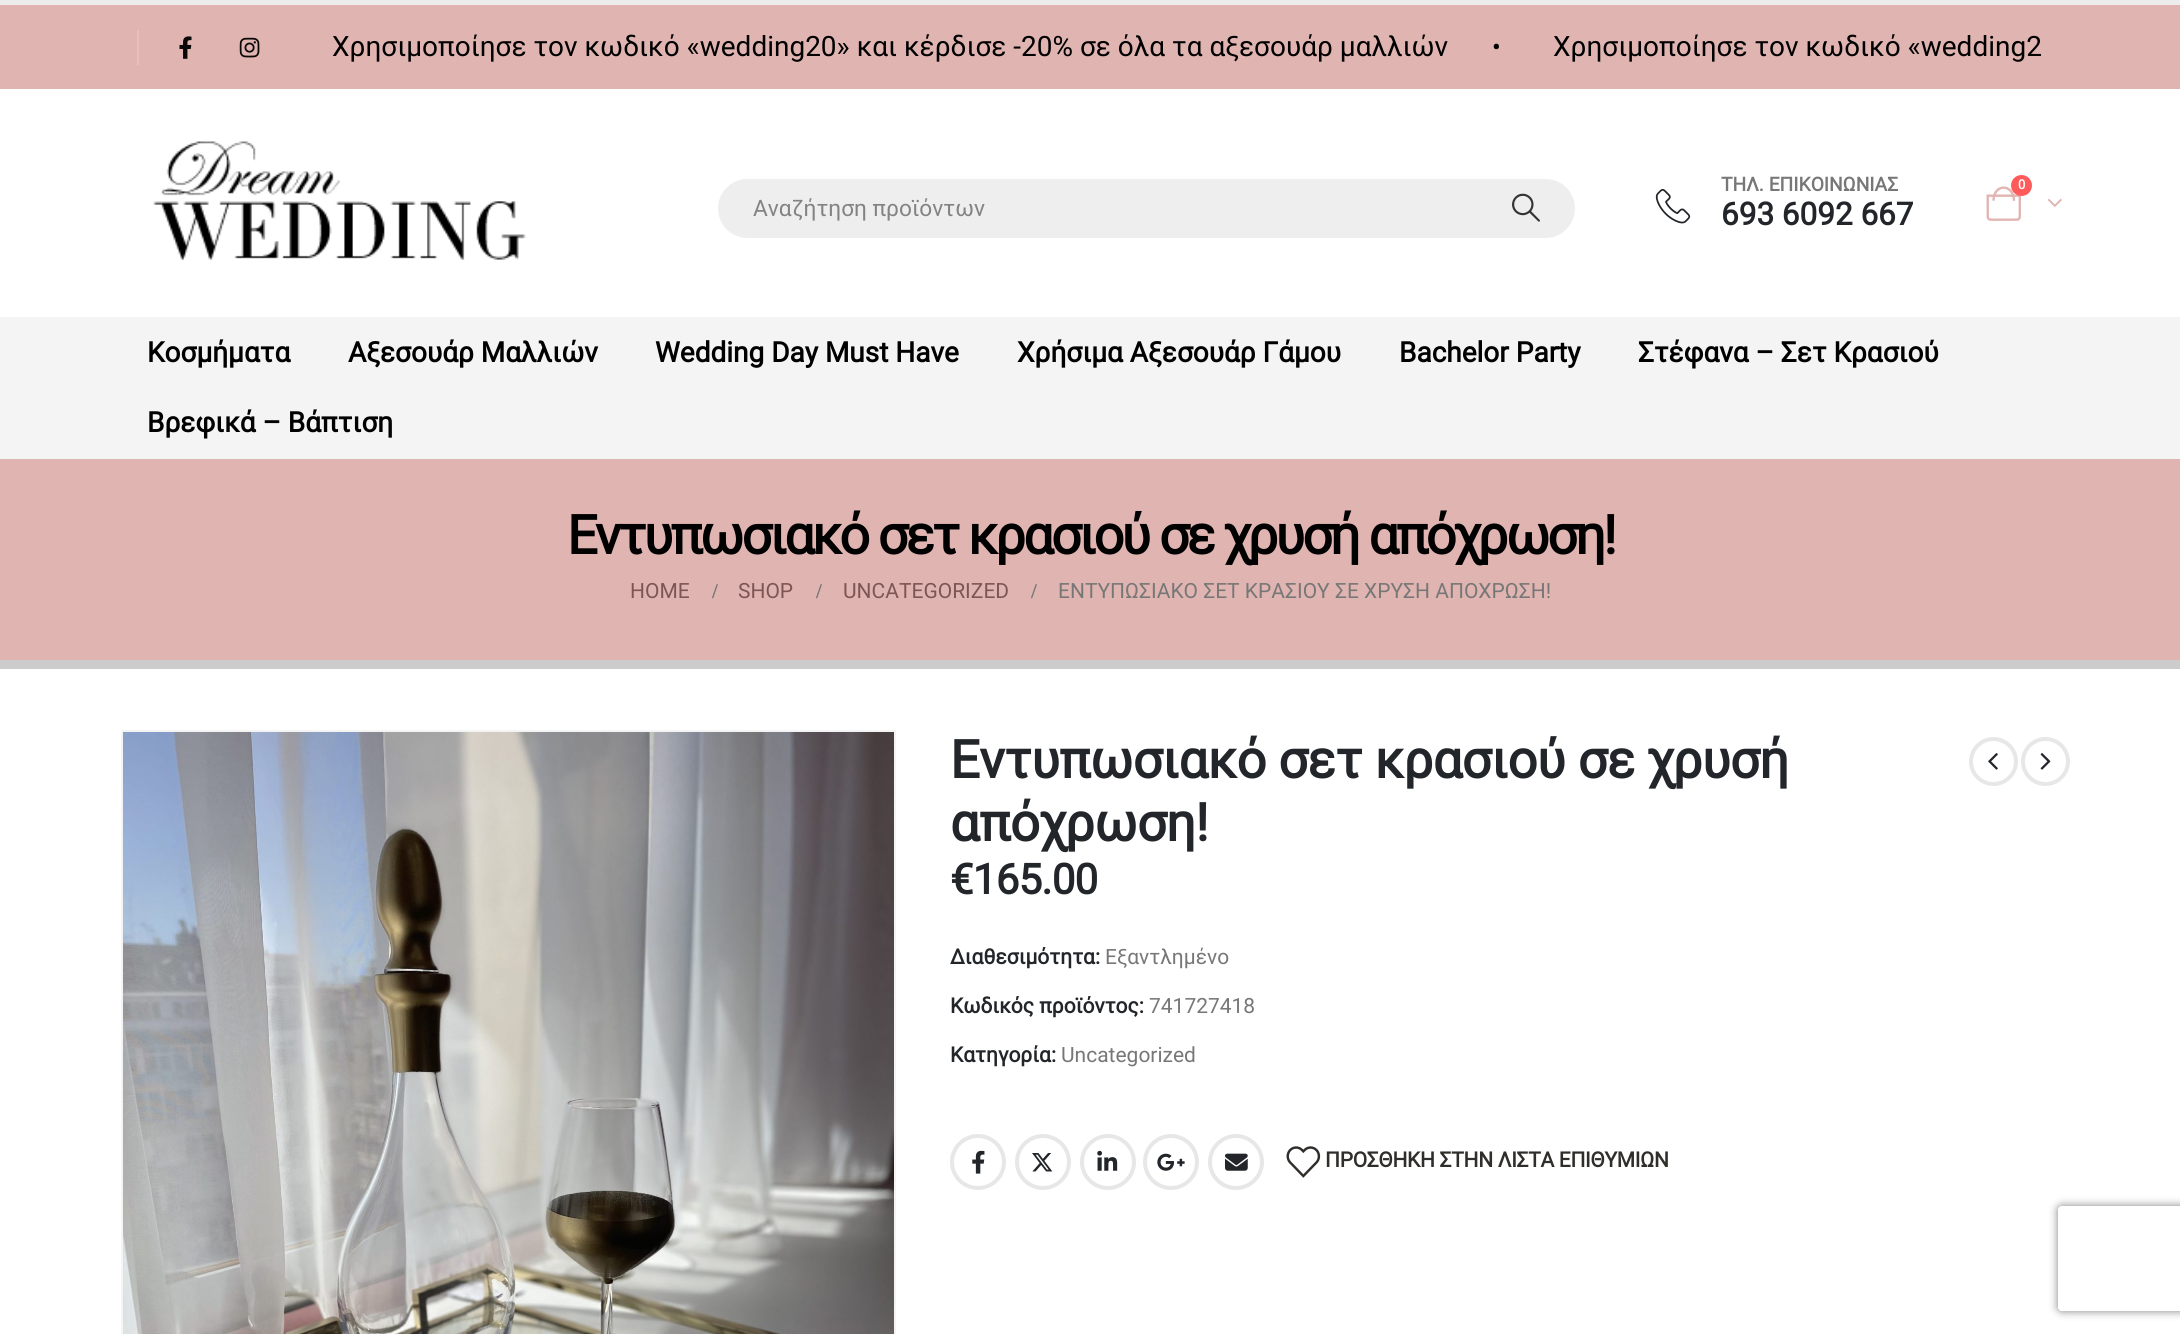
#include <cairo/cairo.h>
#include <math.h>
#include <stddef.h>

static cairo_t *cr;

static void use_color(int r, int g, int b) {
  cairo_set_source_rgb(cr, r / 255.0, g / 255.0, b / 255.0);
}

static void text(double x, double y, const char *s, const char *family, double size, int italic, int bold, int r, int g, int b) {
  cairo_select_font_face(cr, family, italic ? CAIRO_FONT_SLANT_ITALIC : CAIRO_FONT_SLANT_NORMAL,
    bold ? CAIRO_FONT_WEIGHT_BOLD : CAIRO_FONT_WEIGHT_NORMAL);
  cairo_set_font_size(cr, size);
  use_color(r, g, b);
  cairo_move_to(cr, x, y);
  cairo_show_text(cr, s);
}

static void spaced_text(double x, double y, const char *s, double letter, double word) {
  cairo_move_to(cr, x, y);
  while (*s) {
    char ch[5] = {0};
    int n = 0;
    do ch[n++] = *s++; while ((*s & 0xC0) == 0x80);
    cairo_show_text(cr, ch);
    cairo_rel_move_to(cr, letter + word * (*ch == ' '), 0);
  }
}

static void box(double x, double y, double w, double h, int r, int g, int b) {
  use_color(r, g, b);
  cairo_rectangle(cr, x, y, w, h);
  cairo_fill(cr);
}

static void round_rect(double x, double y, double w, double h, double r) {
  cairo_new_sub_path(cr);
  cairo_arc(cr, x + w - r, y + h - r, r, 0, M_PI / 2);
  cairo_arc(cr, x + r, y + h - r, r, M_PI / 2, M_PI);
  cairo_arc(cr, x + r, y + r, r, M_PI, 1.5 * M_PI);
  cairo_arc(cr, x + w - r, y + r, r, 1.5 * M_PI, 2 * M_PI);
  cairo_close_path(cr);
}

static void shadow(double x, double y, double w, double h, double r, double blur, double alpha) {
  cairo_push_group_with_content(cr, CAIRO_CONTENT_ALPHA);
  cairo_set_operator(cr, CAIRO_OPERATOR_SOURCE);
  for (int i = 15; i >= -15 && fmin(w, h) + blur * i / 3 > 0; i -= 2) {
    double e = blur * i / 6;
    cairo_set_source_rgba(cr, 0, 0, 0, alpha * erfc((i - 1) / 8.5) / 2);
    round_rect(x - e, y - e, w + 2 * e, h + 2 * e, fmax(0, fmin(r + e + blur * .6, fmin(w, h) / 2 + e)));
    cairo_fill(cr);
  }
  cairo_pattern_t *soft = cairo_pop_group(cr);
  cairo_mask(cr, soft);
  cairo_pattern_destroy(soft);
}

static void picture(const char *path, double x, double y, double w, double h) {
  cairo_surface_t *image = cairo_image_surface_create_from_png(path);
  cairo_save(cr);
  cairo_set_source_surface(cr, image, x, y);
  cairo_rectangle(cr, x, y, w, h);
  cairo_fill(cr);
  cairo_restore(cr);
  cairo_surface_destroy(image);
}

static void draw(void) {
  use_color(255, 255, 255);
  cairo_paint(cr);
  box(0, 0, 2180, 5, 237, 237, 237);
  box(0, 5, 2180, 84, 224, 180, 177);
  box(137, 30, 2, 35, 230, 194, 191);
  picture("img_01.png", 179, 36, 13, 23);
  picture("img_02.png", 239, 37, 21, 21);
  picture("img_03.png", 153, 141, 373, 119);
  picture("img_04.png", 1655, 188, 36, 36);
  picture("img_05.png", 1986, 186, 35, 35);
  use_color(255, 91, 91);
  cairo_arc(cr, 2021.5, 185.5, 10.5, 0, 2 * M_PI);
  cairo_fill(cr);
  picture("img_06.png", 2048, 198, 14, 9);
  use_color(238, 238, 238);
  round_rect(718, 179, 857, 59, 29.5);
  cairo_fill(cr);
  picture("img_07.png", 1512, 193, 28, 29);
  box(0, 317, 2180, 142, 244, 244, 244);
  box(0, 459, 2180, 201, 224, 180, 177);
  box(0, 660, 2180, 9, 204, 204, 204);
  cairo_rectangle(cr, 122, 731, 773, 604);
  use_color(244, 244, 244);
  cairo_stroke(cr);
  picture("img_08.png", 123, 732, 771, 602);
  cairo_arc(cr, 1993.5, 761.5, 22.5, 0, 2 * M_PI);
  use_color(231, 231, 231);
  cairo_set_line_width(cr, 4);
  cairo_stroke(cr);
  picture("img_09.png", 1988, 753, 10, 17);
  cairo_arc(cr, 2045.5, 761.5, 22.5, 0, 2 * M_PI);
  cairo_stroke(cr);
  picture("img_10.png", 2040, 753, 11, 17);
  cairo_arc(cr, 978, 1162, 26, 0, 2 * M_PI);
  cairo_stroke(cr);
  picture("img_11.png", 972, 1150, 13, 24);
  cairo_arc(cr, 1043, 1162, 26, 0, 2 * M_PI);
  cairo_stroke(cr);
  picture("img_12.png", 1032, 1153, 21, 19);
  cairo_arc(cr, 1108, 1162, 26, 0, 2 * M_PI);
  cairo_stroke(cr);
  picture("img_13.png", 1097, 1150, 21, 21);
  cairo_arc(cr, 1171, 1162, 26, 0, 2 * M_PI);
  cairo_stroke(cr);
  picture("img_14.png", 1157, 1153, 28, 18);
  cairo_arc(cr, 1236, 1162, 26, 0, 2 * M_PI);
  cairo_stroke(cr);
  picture("img_15.png", 1225, 1153, 23, 18);
  picture("img_16.png", 1286, 1146, 35, 32);
  cairo_save(cr);
  cairo_set_fill_rule(cr, CAIRO_FILL_RULE_EVEN_ODD);
  cairo_new_path(cr);
  cairo_move_to(cr, 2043, 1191);
  cairo_line_to(cr, 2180, 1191);
  cairo_line_to(cr, 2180, 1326);
  cairo_line_to(cr, 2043, 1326);
  cairo_close_path(cr);
  cairo_move_to(cr, 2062, 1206);
  cairo_line_to(cr, 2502, 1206);
  cairo_curve_to(cr, 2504, 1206, 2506, 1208, 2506, 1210);
  cairo_line_to(cr, 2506, 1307);
  cairo_curve_to(cr, 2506, 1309, 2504, 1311, 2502, 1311);
  cairo_line_to(cr, 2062, 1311);
  cairo_curve_to(cr, 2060, 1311, 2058, 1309, 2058, 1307);
  cairo_line_to(cr, 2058, 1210);
  cairo_curve_to(cr, 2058, 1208, 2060, 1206, 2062, 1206);
  cairo_close_path(cr);
  cairo_clip(cr);
  use_color(128, 128, 128);
  shadow(2058, 1206, 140, 105, 4, 4.5, 1);
  cairo_restore(cr);
  text(332, 56, "Χρησιμοποίησε τον κωδικό «wedding20» και κέρδισε -20% σε όλα τα αξεσουάρ μαλλιών", "Roboto", 28, 0, 0, 0, 0, 0);
  text(1492, 56, "•", "Roboto", 26, 0, 0, 0, 0, 0);
  text(1553, 56, "Χρησιμοποίησε τον κωδικό «wedding2", "Roboto", 28, 0, 0, 0, 0, 0);
  text(1721, 191, "ΤΗΛ. ΕΠΙΚΟΙΝΩΝΙΑΣ", "Roboto", 19.25, 0, 1, 119, 119, 119);
  text(1721, 225, "693 6092 667", "Roboto", 31.5, 0, 1, 34, 37, 41);
  text(2018, 189, "0", "Roboto", 13, 0, 1, 255, 255, 255);
  text(753, 216, "Αναζήτηση προϊόντων", "Roboto", 22.75, 0, 0, 131, 131, 131);
  text(147, 362, "Κοσμήματα", "Roboto", 28, 0, 1, 0, 0, 0);
  text(348, 362, "Αξεσουάρ Μαλλιών", "Roboto", 28, 0, 1, 0, 0, 0);
  text(655, 362, "Wedding Day Must Have", "Roboto", 28, 0, 1, 0, 0, 0);
  text(1017, 362, "Χρήσιμα Αξεσουάρ Γάμου", "Roboto", 28, 0, 1, 0, 0, 0);
  text(1399, 362, "Bachelor Party", "Roboto", 28, 0, 1, 0, 0, 0);
  text(1638, 362, "Στέφανα – Σετ Κρασιού", "Roboto", 28, 0, 1, 0, 0, 0);
  text(147, 432, "Βρεφικά – Βάπτιση", "Roboto", 28, 0, 1, 0, 0, 0);
  cairo_set_font_size(cr, 53.9);
  spaced_text(567, 554, "Εντυπωσιακό σετ κρασιού σε χρυσή απόχρωση!", -2.7, 0);
  text(630, 598, "HOME", "Roboto", 21, 0, 0, 124, 86, 84);
  text(712, 598, "/", "Liberation Serif", 21, 0, 1, 119, 119, 119);
  text(738, 598, "SHOP", "Roboto", 21, 0, 0, 124, 86, 84);
  text(816, 598, "/", "Liberation Serif", 21, 0, 1, 119, 119, 119);
  text(843, 598, "UNCATEGORIZED", "Roboto", 21, 0, 0, 124, 86, 84);
  text(1031, 598, "/", "Liberation Serif", 21, 0, 1, 119, 119, 119);
  text(1058, 598, "ΕΝΤΥΠΩΣΙΑΚΟ ΣΕΤ ΚΡΑΣΙΟΥ ΣΕ ΧΡΥΣΗ ΑΠΟΧΡΩΣΗ!", "Roboto", 21, 0, 0, 119, 119, 119);
  cairo_select_font_face(cr, "Roboto", CAIRO_FONT_SLANT_NORMAL, CAIRO_FONT_WEIGHT_BOLD);
  cairo_set_font_size(cr, 52.5);
  use_color(34, 37, 41);
  spaced_text(950, 778, "Εντυπωσιακό σετ κρασιού σε χρυσή", -0.5, 0);
  spaced_text(950, 841, "απόχρωση!", -0.5, 0);
  cairo_set_font_size(cr, 42);
  spaced_text(950, 894, "€165.00", -0.75, 0);
  text(950, 964, "Διαθεσιμότητα:", "Roboto", 21, 0, 1, 34, 37, 41);
  text(1105, 964, "Εξαντλημένο", "Roboto", 21, 0, 0, 119, 119, 119);
  text(950, 1013, "Κωδικός προϊόντος:", "Roboto", 21, 0, 1, 34, 37, 41);
  text(1149, 1013, "741727418", "Roboto", 21, 0, 0, 119, 119, 119);
  text(950, 1062, "Κατηγορία:", "Roboto", 21, 0, 1, 34, 37, 41);
  text(1061, 1062, "Uncategorized", "Roboto", 21, 0, 0, 119, 119, 119);
  cairo_select_font_face(cr, "Roboto", CAIRO_FONT_SLANT_NORMAL, CAIRO_FONT_WEIGHT_BOLD);
  use_color(48, 46, 42);
  spaced_text(1325, 1167, "ΠΡΟΣΘΗΚΗ ΣΤΗΝ ΛΙΣΤΑ ΕΠΙΘΥΜΙΩΝ", -0.3, 0);
}

int main(void) {
  cairo_surface_t *surface = cairo_image_surface_create(CAIRO_FORMAT_RGB24, 2180, 1334);
  cr = cairo_create(surface);
  cairo_font_options_t *options = cairo_font_options_create();
  cairo_font_options_set_hint_metrics(options, CAIRO_HINT_METRICS_OFF);
  cairo_font_options_set_hint_style(options, CAIRO_HINT_STYLE_NONE);
  cairo_set_font_options(cr, options);
  cairo_set_miter_limit(cr, 4);
  draw();
  cairo_surface_write_to_png(surface, "out.png");
  cairo_font_options_destroy(options);
  cairo_destroy(cr);
  cairo_surface_destroy(surface);
  return 0;
}
